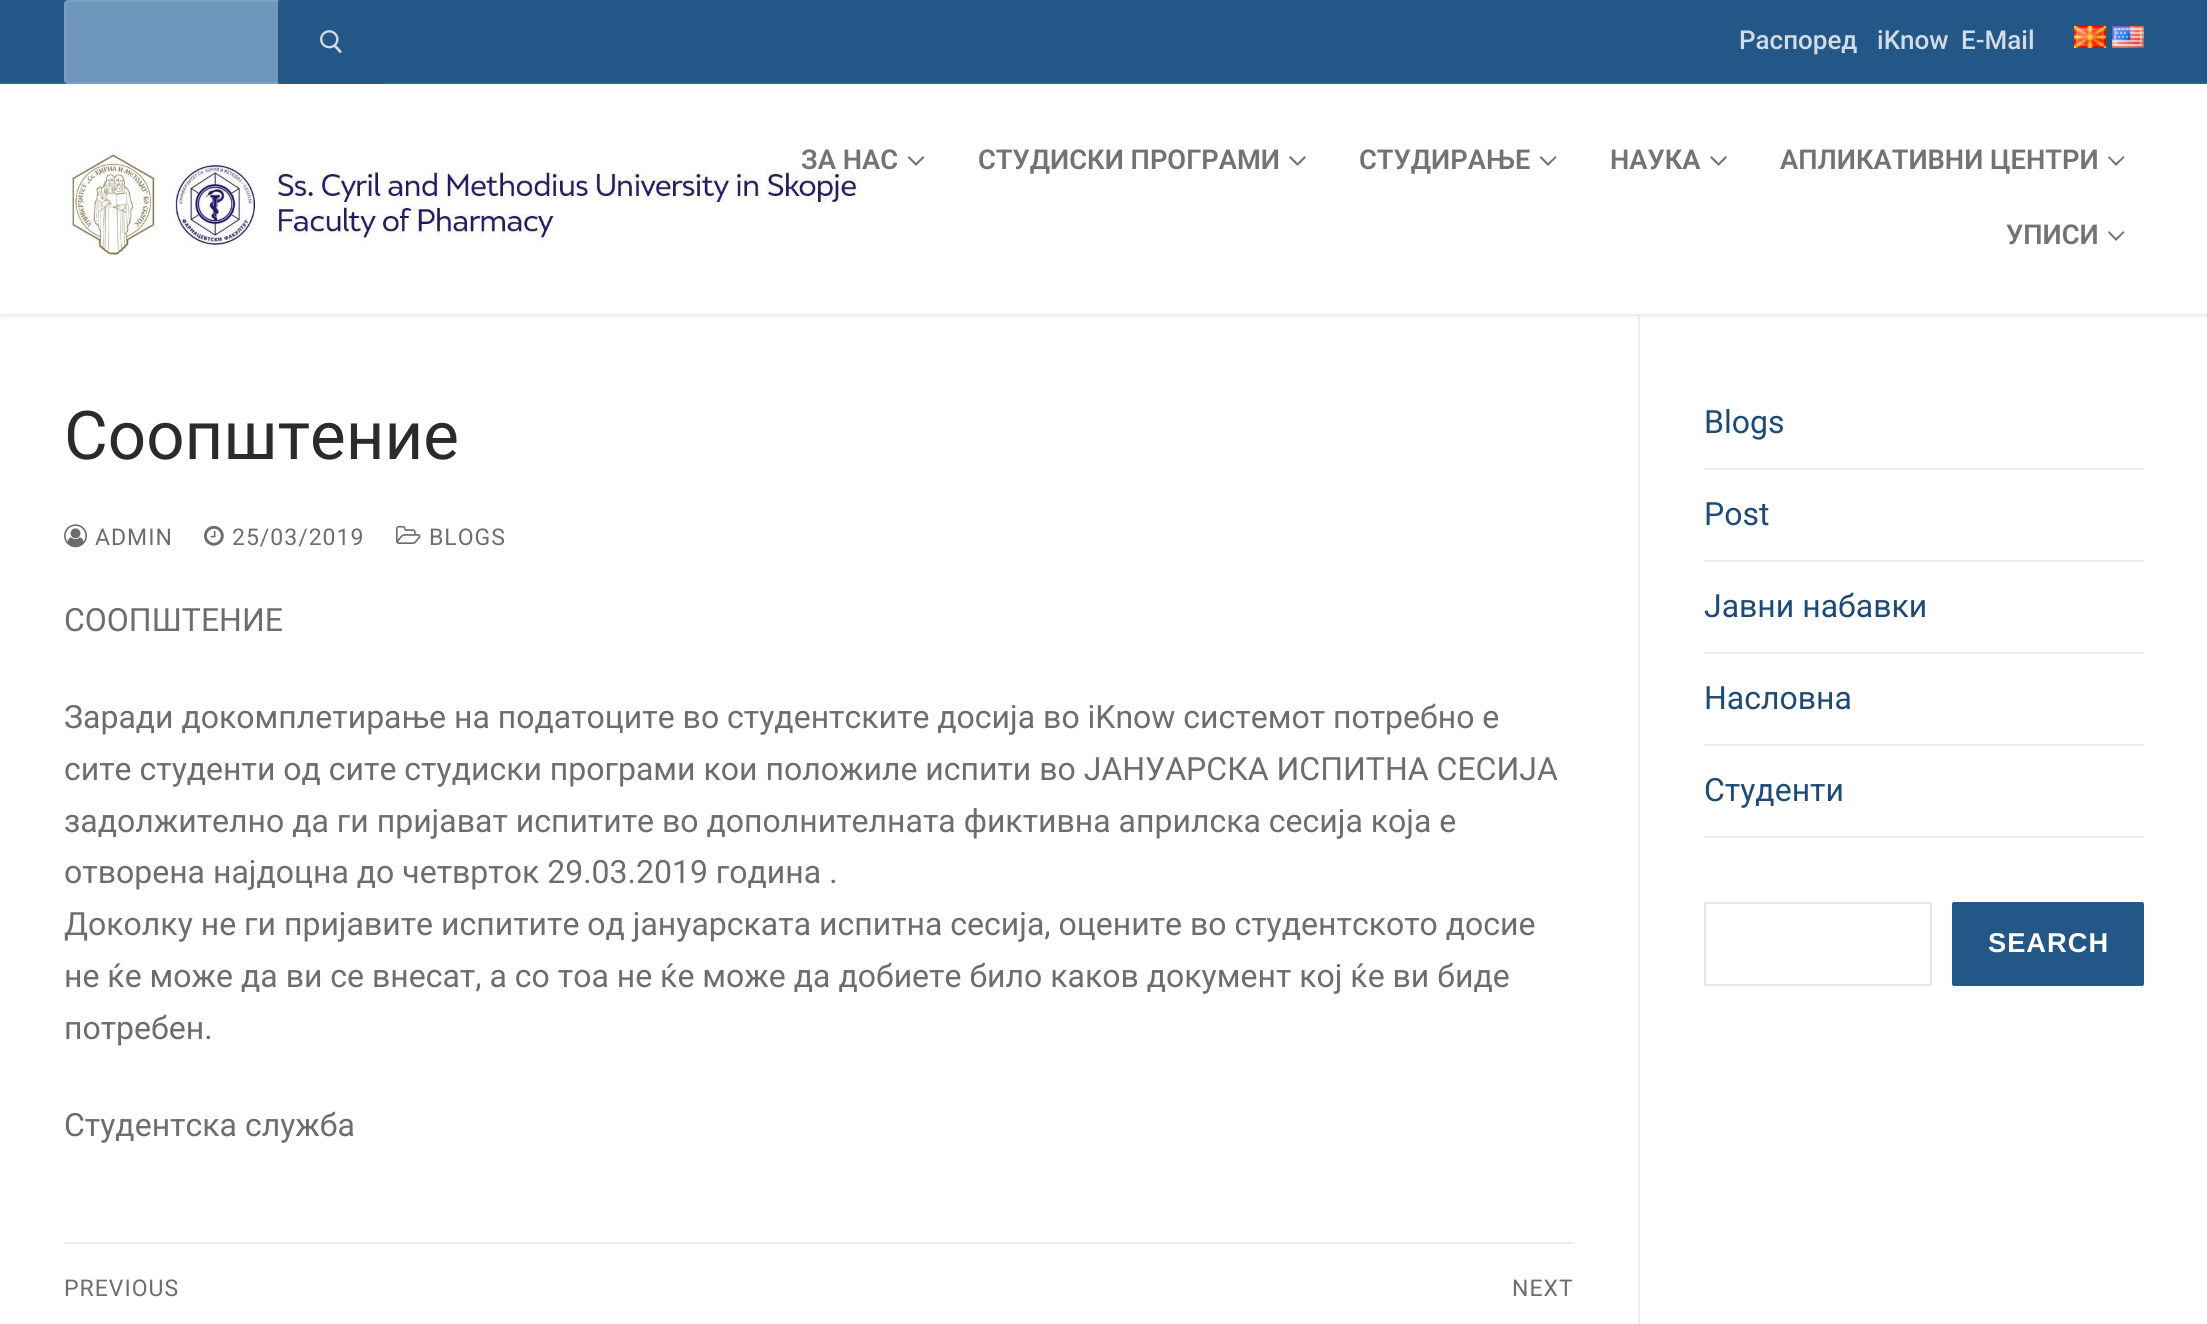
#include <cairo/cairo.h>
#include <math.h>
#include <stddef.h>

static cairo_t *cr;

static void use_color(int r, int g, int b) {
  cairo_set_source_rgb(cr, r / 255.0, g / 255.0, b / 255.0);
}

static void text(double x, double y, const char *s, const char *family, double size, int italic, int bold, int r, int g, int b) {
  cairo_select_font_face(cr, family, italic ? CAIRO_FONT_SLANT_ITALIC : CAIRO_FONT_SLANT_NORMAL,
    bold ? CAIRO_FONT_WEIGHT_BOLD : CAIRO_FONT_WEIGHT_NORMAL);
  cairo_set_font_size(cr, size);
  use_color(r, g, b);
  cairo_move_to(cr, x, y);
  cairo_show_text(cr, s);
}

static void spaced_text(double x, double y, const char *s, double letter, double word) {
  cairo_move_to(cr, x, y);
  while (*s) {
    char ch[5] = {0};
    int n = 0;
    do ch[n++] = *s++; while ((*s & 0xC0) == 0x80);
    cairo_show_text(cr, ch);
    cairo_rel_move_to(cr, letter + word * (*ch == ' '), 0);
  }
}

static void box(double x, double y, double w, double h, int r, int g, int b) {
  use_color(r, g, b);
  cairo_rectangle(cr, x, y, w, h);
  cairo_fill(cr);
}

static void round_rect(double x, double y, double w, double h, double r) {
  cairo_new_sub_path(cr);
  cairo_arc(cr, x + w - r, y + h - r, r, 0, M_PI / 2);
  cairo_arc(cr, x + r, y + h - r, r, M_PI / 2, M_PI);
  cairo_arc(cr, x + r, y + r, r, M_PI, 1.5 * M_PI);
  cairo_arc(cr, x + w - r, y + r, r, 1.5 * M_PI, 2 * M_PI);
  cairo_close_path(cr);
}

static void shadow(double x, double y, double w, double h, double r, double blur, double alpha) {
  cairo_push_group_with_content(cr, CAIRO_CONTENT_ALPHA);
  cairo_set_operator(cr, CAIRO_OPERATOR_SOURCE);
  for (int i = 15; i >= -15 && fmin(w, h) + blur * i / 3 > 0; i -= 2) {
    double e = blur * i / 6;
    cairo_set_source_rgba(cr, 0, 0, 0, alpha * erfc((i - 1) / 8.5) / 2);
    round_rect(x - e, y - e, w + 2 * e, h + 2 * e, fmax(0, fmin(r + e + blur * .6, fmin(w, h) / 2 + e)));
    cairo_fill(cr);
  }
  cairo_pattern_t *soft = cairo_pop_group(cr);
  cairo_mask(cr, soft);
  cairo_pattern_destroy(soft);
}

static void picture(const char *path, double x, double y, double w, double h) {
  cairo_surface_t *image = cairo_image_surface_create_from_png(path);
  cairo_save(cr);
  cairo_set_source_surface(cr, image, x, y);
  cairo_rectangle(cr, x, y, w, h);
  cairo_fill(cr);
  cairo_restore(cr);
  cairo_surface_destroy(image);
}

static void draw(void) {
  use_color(255, 255, 255);
  cairo_paint(cr);
  box(0, 0, 2207, 84, 35, 87, 135);
  box(1638, 314, 2, 1010, 234, 236, 238);
  cairo_save(cr);
  cairo_set_fill_rule(cr, CAIRO_FILL_RULE_EVEN_ODD);
  cairo_new_path(cr);
  cairo_move_to(cr, 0, 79);
  cairo_line_to(cr, 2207, 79);
  cairo_line_to(cr, 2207, 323);
  cairo_line_to(cr, 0, 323);
  cairo_close_path(cr);
  cairo_move_to(cr, 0, 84);
  cairo_line_to(cr, 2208, 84);
  cairo_line_to(cr, 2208, 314);
  cairo_line_to(cr, 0, 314);
  cairo_close_path(cr);
  cairo_clip(cr);
  use_color(225, 229, 234);
  shadow(0, 86, 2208, 230, 0, 2, 1);
  cairo_restore(cr);
  cairo_set_source_rgba(cr, 0.455, 0.608, 0.749, 0.94);
  round_rect(64, 0, 294, 84, 4);
  cairo_fill(cr);
  round_rect(65, 1, 292, 82, 3);
  cairo_set_source_rgba(cr, 1, 1, 1, 0.08);
  cairo_stroke(cr);
  use_color(35, 87, 135);
  round_rect(278, 0, 106, 84, 2);
  cairo_fill(cr);
  picture("img_01.png", 320, 30, 22, 24);
  picture("img_02.png", 2074, 26, 32, 22);
  picture("img_03.png", 2112, 26, 32, 22);
  picture("img_04.png", 64, 151, 798, 105);
  use_color(115, 115, 115);
  cairo_new_path(cr);
  cairo_move_to(cr, 916, 166);
  cairo_line_to(cr, 907.5, 157.5);
  cairo_line_to(cr, 909, 156);
  cairo_line_to(cr, 916, 163);
  cairo_close_path(cr);
  cairo_move_to(cr, 924.5, 157.5);
  cairo_line_to(cr, 916, 166);
  cairo_line_to(cr, 916, 163);
  cairo_line_to(cr, 923, 156);
  cairo_close_path(cr);
  cairo_fill(cr);
  cairo_new_path(cr);
  cairo_move_to(cr, 1297.5, 166);
  cairo_line_to(cr, 1289, 157.5);
  cairo_line_to(cr, 1290.5, 156);
  cairo_line_to(cr, 1297.5, 163);
  cairo_close_path(cr);
  cairo_fill(cr);
  cairo_set_source_rgba(cr, 0, 0, 0, 0.55);
  cairo_new_path(cr);
  cairo_move_to(cr, 1306, 157.5);
  cairo_line_to(cr, 1297.5, 166);
  cairo_line_to(cr, 1297.5, 163);
  cairo_line_to(cr, 1304.5, 156);
  cairo_close_path(cr);
  cairo_fill(cr);
  use_color(115, 115, 115);
  cairo_new_path(cr);
  cairo_move_to(cr, 1548, 166);
  cairo_line_to(cr, 1539.5, 157.5);
  cairo_line_to(cr, 1541, 156);
  cairo_line_to(cr, 1548, 163);
  cairo_close_path(cr);
  cairo_move_to(cr, 1556.5, 157.5);
  cairo_line_to(cr, 1548, 166);
  cairo_line_to(cr, 1548, 163);
  cairo_line_to(cr, 1555.5, 156);
  cairo_close_path(cr);
  cairo_fill(cr);
  cairo_new_path(cr);
  cairo_move_to(cr, 1718.5, 166);
  cairo_line_to(cr, 1710, 157.5);
  cairo_line_to(cr, 1711.5, 156);
  cairo_line_to(cr, 1718.5, 163);
  cairo_close_path(cr);
  cairo_fill(cr);
  cairo_set_source_rgba(cr, 0, 0, 0, 0.55);
  cairo_new_path(cr);
  cairo_move_to(cr, 1727, 157.5);
  cairo_line_to(cr, 1718.5, 166);
  cairo_line_to(cr, 1718.5, 163);
  cairo_line_to(cr, 1725.5, 156);
  cairo_close_path(cr);
  cairo_fill(cr);
  use_color(115, 115, 115);
  cairo_new_path(cr);
  cairo_move_to(cr, 2116, 166);
  cairo_line_to(cr, 2108, 157.5);
  cairo_line_to(cr, 2109, 156);
  cairo_line_to(cr, 2116, 163);
  cairo_close_path(cr);
  cairo_move_to(cr, 2124.5, 157.5);
  cairo_line_to(cr, 2116, 166);
  cairo_line_to(cr, 2116, 163);
  cairo_line_to(cr, 2123.5, 156);
  cairo_close_path(cr);
  cairo_fill(cr);
  cairo_new_path(cr);
  cairo_move_to(cr, 2116, 241);
  cairo_line_to(cr, 2108, 232.5);
  cairo_line_to(cr, 2109, 231);
  cairo_line_to(cr, 2116, 238);
  cairo_close_path(cr);
  cairo_move_to(cr, 2124.5, 232.5);
  cairo_line_to(cr, 2116, 241);
  cairo_line_to(cr, 2116, 238);
  cairo_line_to(cr, 2123.5, 231);
  cairo_close_path(cr);
  cairo_fill(cr);
  picture("img_05.png", 64, 524, 23, 24);
  picture("img_06.png", 204, 525, 20, 21);
  picture("img_07.png", 396, 525, 25, 19);
  box(64, 1242, 1510, 2, 234, 236, 238);
  box(1704, 468, 440, 2, 234, 236, 238);
  box(1704, 560, 440, 2, 234, 236, 238);
  box(1704, 652, 440, 2, 234, 236, 238);
  box(1704, 744, 440, 2, 234, 236, 238);
  box(1704, 836, 440, 2, 234, 236, 238);
  round_rect(1705, 903, 226, 82, 1);
  use_color(229, 229, 229);
  cairo_stroke(cr);
  use_color(35, 87, 135);
  round_rect(1952, 902, 192, 84, 2);
  cairo_fill(cr);
  text(1739, 49, "Распоред", "Roboto Medium", 26, 0, 0, 209, 220, 230);
  text(1877, 49, "iKnow", "Roboto Medium", 26, 0, 0, 209, 220, 230);
  text(1961, 49, "E-Mail", "Roboto Medium", 26, 0, 0, 209, 220, 230);
  text(801, 169, "ЗА НАС", "Roboto SemiBold", 27.25, 0, 0, 115, 115, 115);
  text(978, 169, "СТУДИСКИ ПРОГРАМИ", "Roboto SemiBold", 27.25, 0, 0, 115, 115, 115);
  text(1359, 169, "СТУДИРАЊЕ", "Roboto SemiBold", 27.25, 0, 0, 115, 115, 115);
  text(1610, 169, "НАУКА", "Roboto SemiBold", 27.25, 0, 0, 115, 115, 115);
  text(1780, 169, "АПЛИКАТИВНИ ЦЕНТРИ", "Roboto SemiBold", 27.25, 0, 0, 115, 115, 115);
  text(2006, 244, "УПИСИ", "Roboto SemiBold", 27.25, 0, 0, 115, 115, 115);
  text(64, 459, "Соопштение", "Roboto", 67.25, 0, 0, 43, 43, 43);
  cairo_set_font_size(cr, 23);
  use_color(109, 109, 109);
  spaced_text(95, 545, "ADMIN", 1, 0);
  spaced_text(232, 545, "25/03/2019", 1, 0);
  spaced_text(429, 545, "BLOGS", 1, 0);
  text(64, 631, "СООПШТЕНИЕ", "Roboto", 32, 0, 0, 109, 109, 109);
  text(64, 728, "Заради докомплетирање на податоците во студентските досија во iKnow системот потребно е", "Roboto", 32, 0, 0, 109, 109, 109);
  text(64, 780, "сите студенти од сите студиски програми кои положиле испити во ЈАНУАРСКА ИСПИТНА СЕСИЈА", "Roboto", 32, 0, 0, 109, 109, 109);
  text(64, 832, "задолжително да ги пријават испитите во дополнителната фиктивна aприлска сесија која е", "Roboto", 32, 0, 0, 109, 109, 109);
  text(64, 883, "отворена најдоцна до четврток 29.03.2019 година .", "Roboto", 32, 0, 0, 109, 109, 109);
  text(64, 935, "Доколку не ги пријавите испитите од јануарската испитна сесија, оцените во студентското досие", "Roboto", 32, 0, 0, 109, 109, 109);
  text(64, 987, "не ќе може да ви се внесат, а со тоа не ќе може да добиете било каков документ кој ќе ви биде", "Roboto", 32, 0, 0, 109, 109, 109);
  text(64, 1039, "потребен.", "Roboto", 32, 0, 0, 109, 109, 109);
  text(64, 1136, "Студентска служба", "Roboto", 32, 0, 0, 109, 109, 109);
  cairo_set_font_size(cr, 23);
  spaced_text(64, 1296, "PREVIOUS", 1, 0);
  spaced_text(1512, 1296, "NEXT", 1, 0);
  text(1704, 433, "Blogs", "Roboto", 32, 0, 0, 30, 75, 117);
  text(1704, 525, "Post", "Roboto", 32, 0, 0, 30, 75, 117);
  text(1704, 617, "Јавни набавки", "Roboto", 32, 0, 0, 30, 75, 117);
  text(1704, 709, "Насловна", "Roboto", 32, 0, 0, 30, 75, 117);
  text(1704, 801, "Студенти", "Roboto", 32, 0, 0, 30, 75, 117);
  cairo_select_font_face(cr, "Liberation Sans", CAIRO_FONT_SLANT_NORMAL, CAIRO_FONT_WEIGHT_BOLD);
  cairo_set_font_size(cr, 27.25);
  use_color(255, 255, 255);
  spaced_text(1988, 952, "SEARCH", 1, 0);
}

int main(void) {
  cairo_surface_t *surface = cairo_image_surface_create(CAIRO_FORMAT_RGB24, 2207, 1324);
  cr = cairo_create(surface);
  cairo_font_options_t *options = cairo_font_options_create();
  cairo_font_options_set_hint_metrics(options, CAIRO_HINT_METRICS_OFF);
  cairo_font_options_set_hint_style(options, CAIRO_HINT_STYLE_NONE);
  cairo_set_font_options(cr, options);
  cairo_set_miter_limit(cr, 4);
  draw();
  cairo_surface_write_to_png(surface, "out.png");
  cairo_font_options_destroy(options);
  cairo_destroy(cr);
  cairo_surface_destroy(surface);
  return 0;
}
